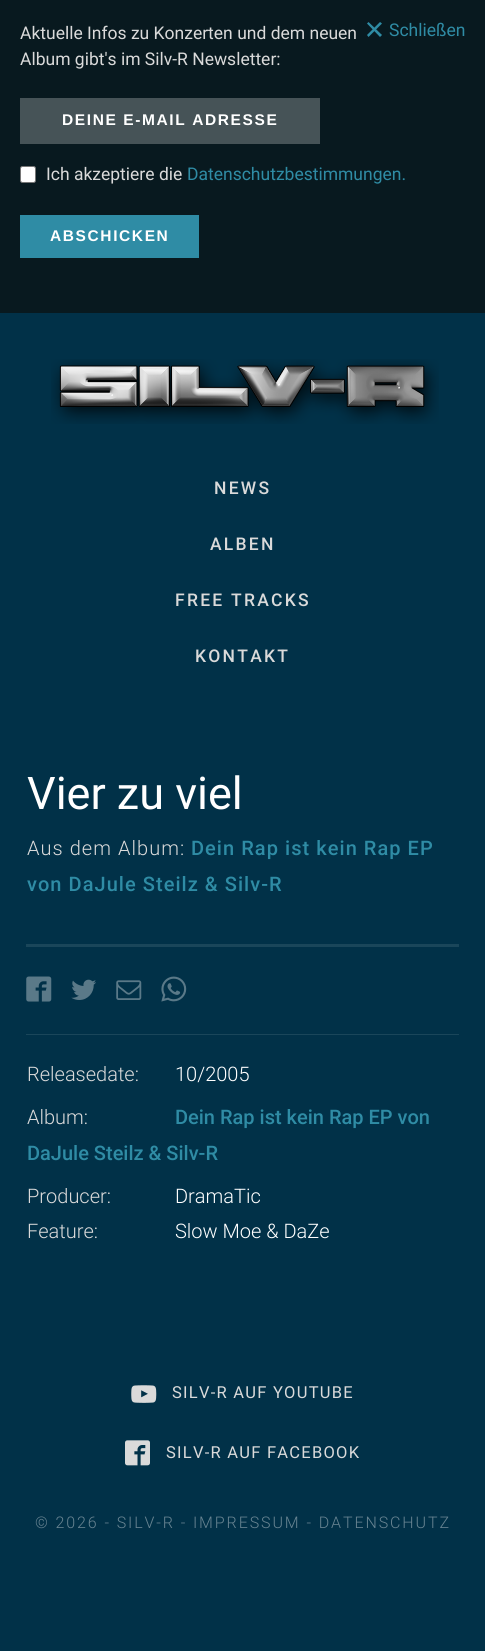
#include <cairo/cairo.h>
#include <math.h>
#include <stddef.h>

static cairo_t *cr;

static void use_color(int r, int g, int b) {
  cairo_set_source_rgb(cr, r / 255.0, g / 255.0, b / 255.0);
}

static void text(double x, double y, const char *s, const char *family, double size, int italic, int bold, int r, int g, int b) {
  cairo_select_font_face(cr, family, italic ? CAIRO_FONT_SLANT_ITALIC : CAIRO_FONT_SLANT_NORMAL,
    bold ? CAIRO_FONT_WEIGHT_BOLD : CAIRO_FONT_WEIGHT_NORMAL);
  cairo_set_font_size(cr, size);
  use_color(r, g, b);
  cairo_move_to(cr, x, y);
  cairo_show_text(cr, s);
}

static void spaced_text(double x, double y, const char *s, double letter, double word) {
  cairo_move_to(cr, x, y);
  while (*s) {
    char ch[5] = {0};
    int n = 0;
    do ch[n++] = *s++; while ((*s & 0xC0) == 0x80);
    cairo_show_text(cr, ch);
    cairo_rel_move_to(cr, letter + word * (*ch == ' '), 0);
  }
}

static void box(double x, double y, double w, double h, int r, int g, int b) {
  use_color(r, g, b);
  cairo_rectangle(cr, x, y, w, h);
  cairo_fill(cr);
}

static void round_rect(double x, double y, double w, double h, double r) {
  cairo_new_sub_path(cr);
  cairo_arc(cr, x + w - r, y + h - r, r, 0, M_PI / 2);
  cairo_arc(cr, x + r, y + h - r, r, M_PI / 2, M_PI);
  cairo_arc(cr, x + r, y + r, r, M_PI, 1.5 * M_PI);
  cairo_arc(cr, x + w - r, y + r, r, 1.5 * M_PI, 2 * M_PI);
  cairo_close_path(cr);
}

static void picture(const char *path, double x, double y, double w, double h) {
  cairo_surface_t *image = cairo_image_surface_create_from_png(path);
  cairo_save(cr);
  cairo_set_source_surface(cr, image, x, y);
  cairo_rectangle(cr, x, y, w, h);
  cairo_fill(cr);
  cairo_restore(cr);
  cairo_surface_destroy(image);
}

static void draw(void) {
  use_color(1, 49, 72);
  cairo_paint(cr);
  box(0, 0, 485, 313, 8, 25, 31);
  use_color(47, 140, 165);
  cairo_new_path(cr);
  cairo_move_to(cr, 368.5, 22);
  cairo_line_to(cr, 382, 35);
  cairo_line_to(cr, 380, 37);
  cairo_line_to(cr, 367, 23.5);
  cairo_close_path(cr);
  cairo_fill(cr);
  cairo_new_path(cr);
  cairo_move_to(cr, 367, 35);
  cairo_line_to(cr, 380, 22);
  cairo_line_to(cr, 382, 23.5);
  cairo_line_to(cr, 368.5, 37);
  cairo_close_path(cr);
  cairo_fill(cr);
  box(20, 98, 300, 46, 70, 83, 87);
  use_color(255, 255, 255);
  round_rect(20.5, 166.5, 15, 16, 2);
  cairo_fill_preserve(cr);
  use_color(118, 118, 118);
  cairo_set_line_width(cr, 1);
  cairo_stroke(cr);
  box(20, 215, 179, 43, 47, 140, 165);
  picture("img_01.png", 51, 359, 388, 65);
  box(26, 944, 433, 3, 26, 70, 90);
  picture("img_02.png", 26, 976, 26, 26);
  picture("img_03.png", 71, 979, 25, 21);
  picture("img_04.png", 116, 980, 26, 20);
  picture("img_05.png", 161, 976, 26, 26);
  box(26, 1034, 433, 1, 26, 70, 90);
  picture("img_06.png", 131, 1385, 26, 18);
  picture("img_07.png", 125, 1440, 25, 26);
  text(20, 39, "Aktuelle Infos zu Konzerten und dem neuen", "Roboto", 17.5, 0, 0, 218, 218, 218);
  text(20, 65, "Album gibt's im Silv-R Newsletter:", "Roboto", 17.5, 0, 0, 218, 218, 218);
  text(389, 36, "Schließen", "Roboto", 17.5, 0, 0, 47, 140, 165);
  cairo_select_font_face(cr, "Liberation Sans", CAIRO_FONT_SLANT_NORMAL, CAIRO_FONT_WEIGHT_BOLD);
  cairo_set_font_size(cr, 15.5);
  use_color(255, 255, 255);
  spaced_text(62, 125, "DEINE E-MAIL ADRESSE", 1.6, 0);
  text(46, 180, "Ich akzeptiere die", "Roboto", 17.5, 0, 0, 218, 218, 218);
  text(187, 180, "Datenschutzbestimmungen.", "Roboto", 17.5, 0, 0, 47, 140, 165);
  cairo_select_font_face(cr, "Liberation Sans", CAIRO_FONT_SLANT_NORMAL, CAIRO_FONT_WEIGHT_BOLD);
  cairo_set_font_size(cr, 15.5);
  use_color(255, 255, 255);
  spaced_text(50, 241, "ABSCHICKEN", 1.6, 0);
  cairo_select_font_face(cr, "Roboto Medium", CAIRO_FONT_SLANT_NORMAL, CAIRO_FONT_WEIGHT_NORMAL);
  cairo_set_font_size(cr, 17.5);
  use_color(218, 218, 218);
  spaced_text(214, 494, "NEWS", 2.25, 0);
  spaced_text(210, 550, "ALBEN", 2.25, 0);
  spaced_text(175, 606, "FREE TRACKS", 2.25, 0);
  spaced_text(195, 662, "KONTAKT", 2.25, 0);
  text(27, 809, "Vier zu viel", "Roboto", 45, 0, 0, 255, 255, 255);
  cairo_select_font_face(cr, "Roboto Light", CAIRO_FONT_SLANT_NORMAL, CAIRO_FONT_WEIGHT_NORMAL);
  cairo_set_font_size(cr, 20);
  use_color(218, 218, 218);
  spaced_text(27, 855, "Aus dem Album:", 1.05, 0);
  cairo_select_font_face(cr, "Roboto Medium", CAIRO_FONT_SLANT_NORMAL, CAIRO_FONT_WEIGHT_NORMAL);
  use_color(47, 140, 165);
  spaced_text(191, 855, "Dein Rap ist kein Rap EP", 1.05, 0);
  spaced_text(27, 891, "von DaJule Steilz & Silv-R", 1.05, 0);
  text(27, 1081, "Releasedate:", "Roboto Light", 20, 0, 0, 218, 218, 218);
  text(175, 1081, "10/2005", "Roboto Light", 20, 0, 0, 255, 255, 255);
  text(27, 1124, "Album:", "Roboto Light", 20, 0, 0, 218, 218, 218);
  text(175, 1124, "Dein Rap ist kein Rap EP von", "Roboto Medium", 20, 0, 0, 47, 140, 165);
  text(27, 1160, "DaJule Steilz & Silv-R", "Roboto Medium", 20, 0, 0, 47, 140, 165);
  text(27, 1203, "Producer:", "Roboto Light", 20, 0, 0, 218, 218, 218);
  text(175, 1203, "DramaTic", "Roboto Light", 20, 0, 0, 255, 255, 255);
  text(27, 1238, "Feature:", "Roboto Light", 20, 0, 0, 218, 218, 218);
  text(175, 1238, "Slow Moe & DaZe", "Roboto Light", 20, 0, 0, 255, 255, 255);
  cairo_select_font_face(cr, "Roboto", CAIRO_FONT_SLANT_NORMAL, CAIRO_FONT_WEIGHT_NORMAL);
  cairo_set_font_size(cr, 16.5);
  use_color(218, 218, 218);
  spaced_text(172, 1398, "SILV-R AUF YOUTUBE", 1.25, 0);
  spaced_text(166, 1458, "SILV-R AUF FACEBOOK", 1.25, 0);
  cairo_select_font_face(cr, "Roboto Light", CAIRO_FONT_SLANT_NORMAL, CAIRO_FONT_WEIGHT_NORMAL);
  cairo_set_font_size(cr, 16);
  use_color(103, 131, 145);
  spaced_text(35, 1528, "© 2026 - SILV-R - IMPRESSUM - DATENSCHUTZ", 1.9, 0);
}

int main(void) {
  cairo_surface_t *surface = cairo_image_surface_create(CAIRO_FORMAT_RGB24, 485, 1651);
  cr = cairo_create(surface);
  cairo_font_options_t *options = cairo_font_options_create();
  cairo_font_options_set_hint_metrics(options, CAIRO_HINT_METRICS_OFF);
  cairo_font_options_set_hint_style(options, CAIRO_HINT_STYLE_NONE);
  cairo_set_font_options(cr, options);
  cairo_set_miter_limit(cr, 4);
  draw();
  cairo_surface_write_to_png(surface, "out.png");
  cairo_font_options_destroy(options);
  cairo_destroy(cr);
  cairo_surface_destroy(surface);
  return 0;
}
